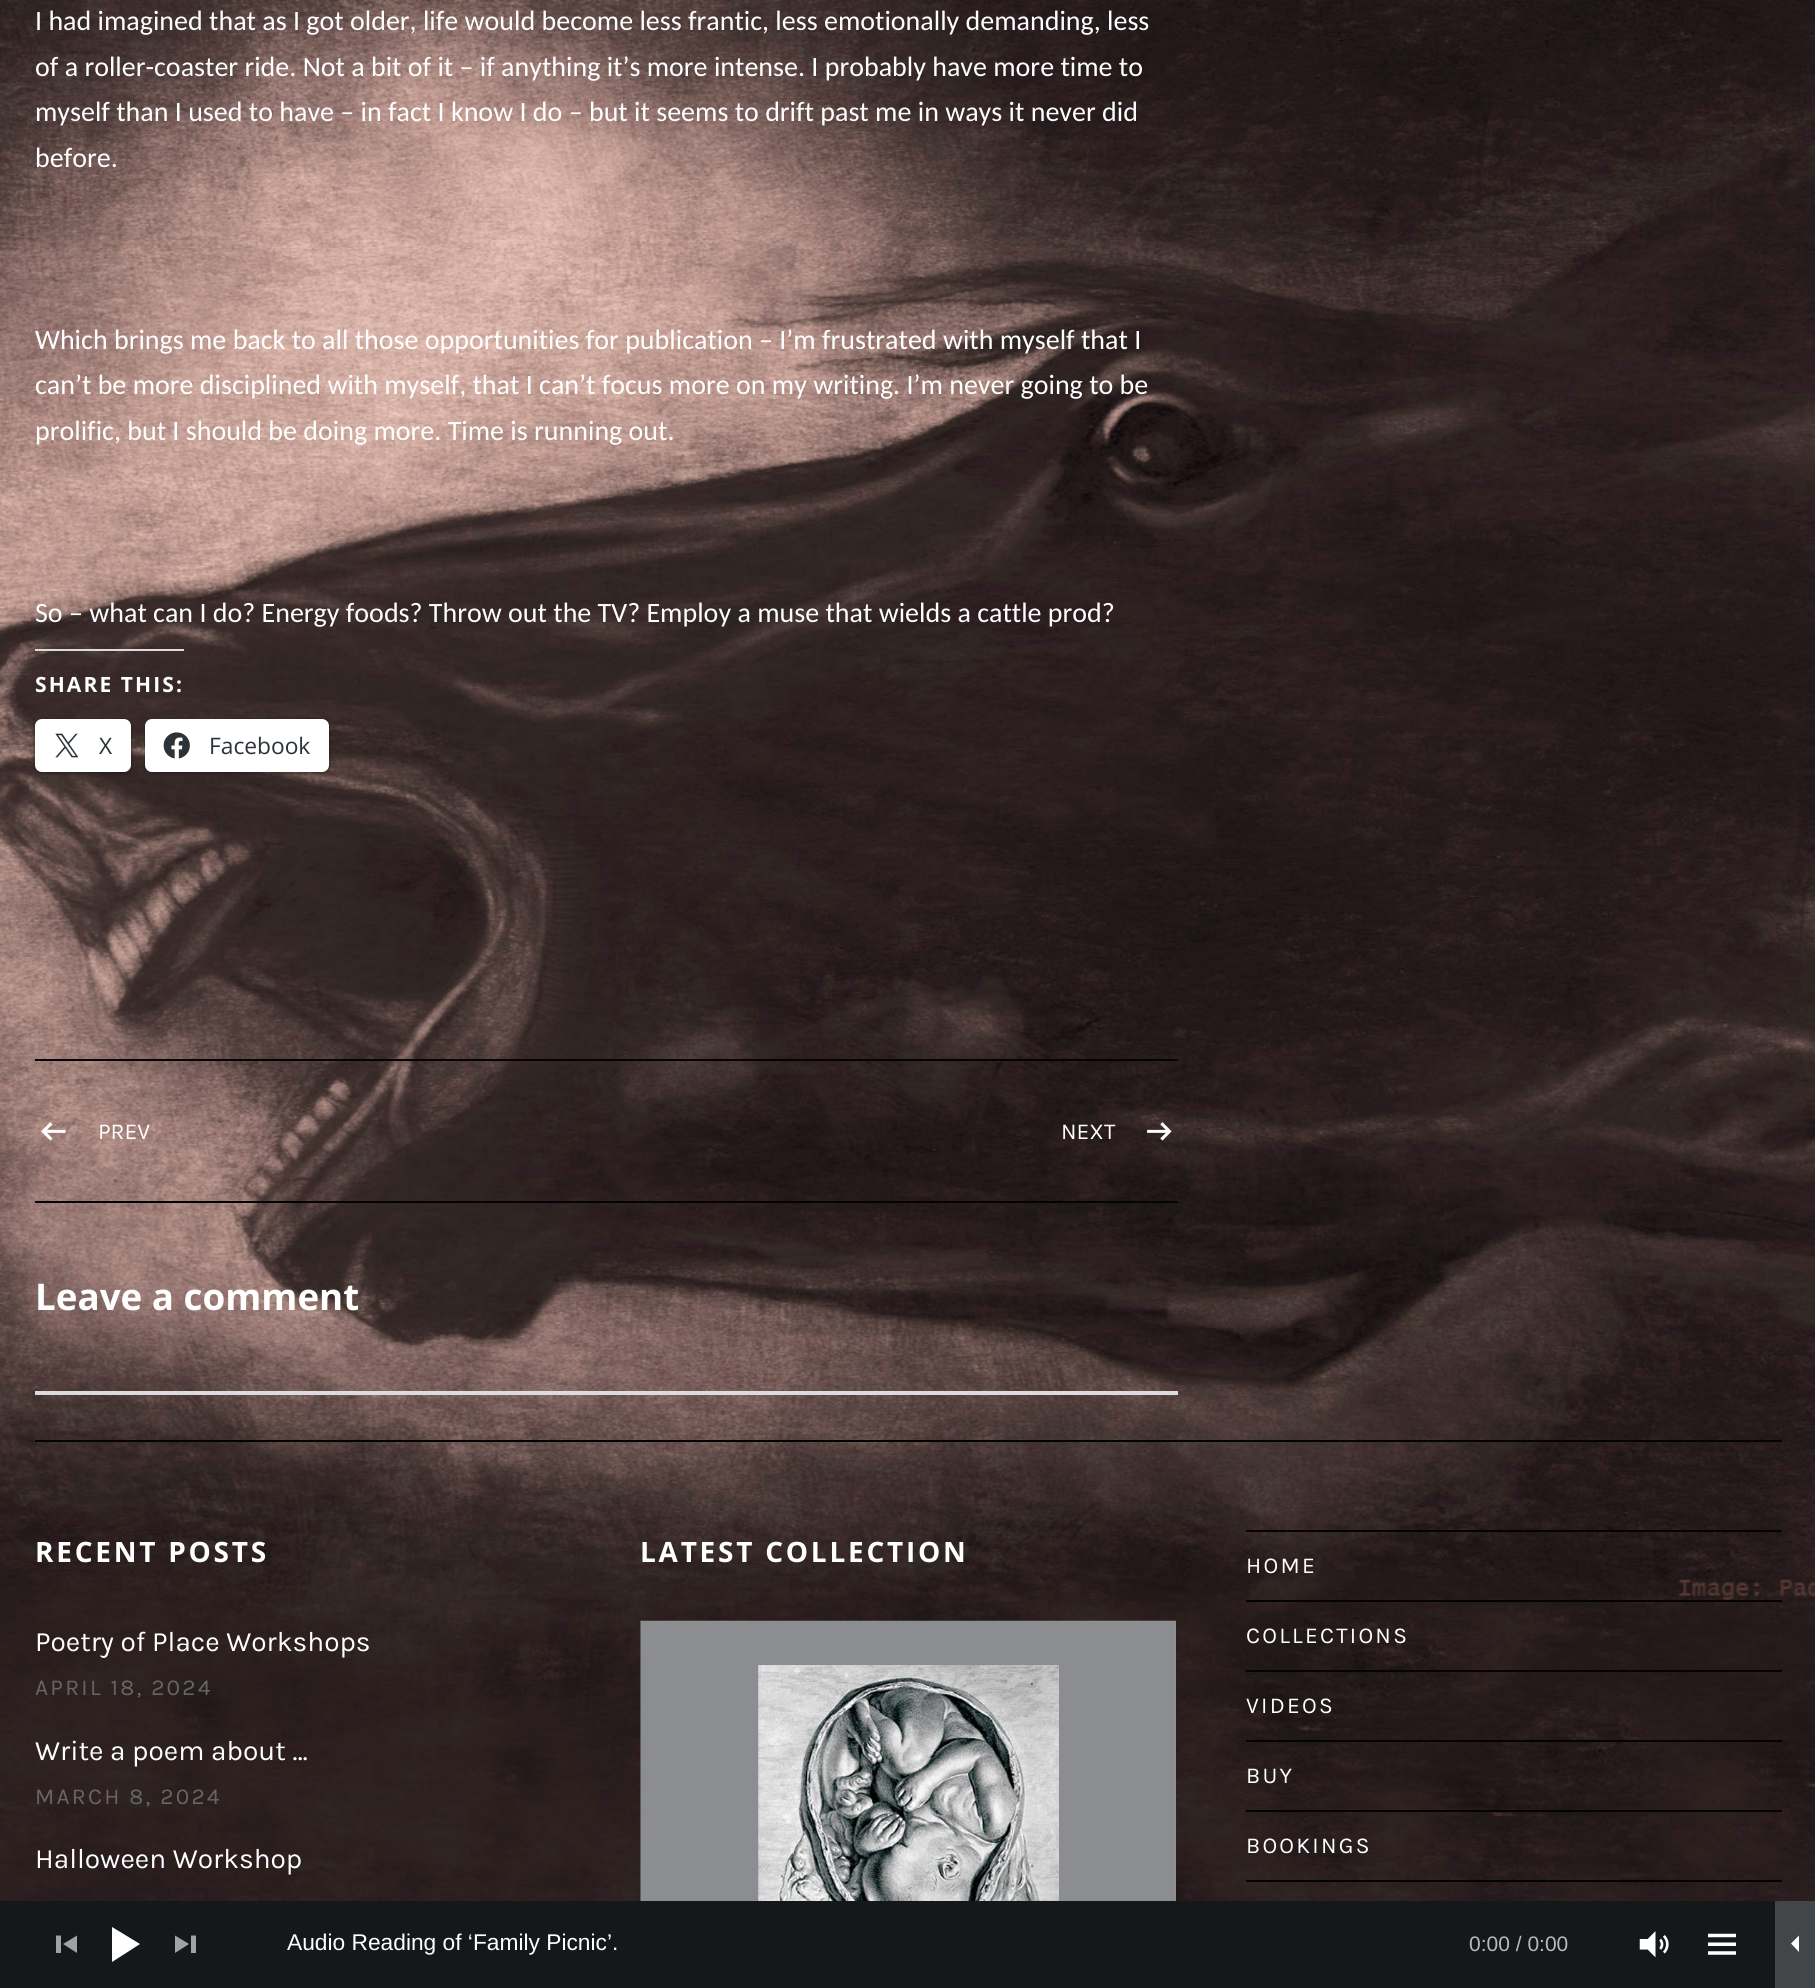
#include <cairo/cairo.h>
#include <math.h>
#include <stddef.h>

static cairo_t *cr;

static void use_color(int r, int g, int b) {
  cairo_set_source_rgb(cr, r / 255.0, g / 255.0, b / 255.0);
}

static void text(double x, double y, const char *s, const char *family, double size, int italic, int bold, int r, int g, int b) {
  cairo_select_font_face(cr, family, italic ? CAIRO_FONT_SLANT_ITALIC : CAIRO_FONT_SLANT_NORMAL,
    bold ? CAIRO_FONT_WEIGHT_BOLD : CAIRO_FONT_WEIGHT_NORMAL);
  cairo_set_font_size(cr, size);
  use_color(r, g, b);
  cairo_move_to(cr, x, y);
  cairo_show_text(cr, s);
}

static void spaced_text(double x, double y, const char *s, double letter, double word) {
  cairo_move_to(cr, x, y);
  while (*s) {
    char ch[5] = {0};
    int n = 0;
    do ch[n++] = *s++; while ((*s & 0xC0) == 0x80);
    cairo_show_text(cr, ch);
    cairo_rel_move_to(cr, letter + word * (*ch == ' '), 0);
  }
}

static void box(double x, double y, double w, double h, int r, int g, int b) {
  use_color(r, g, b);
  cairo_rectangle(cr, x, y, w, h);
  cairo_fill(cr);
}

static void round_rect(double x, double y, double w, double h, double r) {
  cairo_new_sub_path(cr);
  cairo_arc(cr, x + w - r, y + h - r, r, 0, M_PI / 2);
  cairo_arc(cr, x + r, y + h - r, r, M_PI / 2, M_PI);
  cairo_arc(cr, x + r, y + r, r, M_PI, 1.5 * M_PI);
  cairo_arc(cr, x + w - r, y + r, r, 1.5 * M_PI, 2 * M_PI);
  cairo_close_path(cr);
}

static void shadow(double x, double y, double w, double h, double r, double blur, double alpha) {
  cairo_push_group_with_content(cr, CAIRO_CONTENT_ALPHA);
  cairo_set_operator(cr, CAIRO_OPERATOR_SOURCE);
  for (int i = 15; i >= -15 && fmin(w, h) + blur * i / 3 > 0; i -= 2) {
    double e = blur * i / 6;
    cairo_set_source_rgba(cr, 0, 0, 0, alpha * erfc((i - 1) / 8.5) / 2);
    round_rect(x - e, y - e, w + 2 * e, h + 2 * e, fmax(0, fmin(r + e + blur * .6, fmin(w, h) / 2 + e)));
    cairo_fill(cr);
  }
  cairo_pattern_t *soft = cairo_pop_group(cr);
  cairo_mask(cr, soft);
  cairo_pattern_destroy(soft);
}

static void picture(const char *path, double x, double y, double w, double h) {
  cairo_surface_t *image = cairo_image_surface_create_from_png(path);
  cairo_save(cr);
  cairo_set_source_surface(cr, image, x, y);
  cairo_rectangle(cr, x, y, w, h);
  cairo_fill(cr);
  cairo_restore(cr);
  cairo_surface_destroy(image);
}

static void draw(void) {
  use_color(255, 255, 255);
  cairo_paint(cr);
  picture("img_01.png", 0, 0, 1815, 1901);
  box(35, 649, 149, 2, 220, 220, 222);
  round_rect(34, 719, 98, 54, 8);
  cairo_set_source_rgba(cr, 0, 0, 0, 0.12);
  cairo_stroke(cr);
  use_color(0, 0, 0);
  shadow(35, 721, 96, 53, 7, 2, 0.12);
  use_color(255, 255, 255);
  round_rect(35, 719, 96, 53, 7);
  cairo_fill(cr);
  picture("img_02.png", 55, 733, 24, 25);
  round_rect(145, 719, 185, 54, 8);
  cairo_set_source_rgba(cr, 0, 0, 0, 0.12);
  cairo_stroke(cr);
  use_color(0, 0, 0);
  shadow(145, 721, 184, 53, 7, 2, 0.12);
  use_color(255, 255, 255);
  round_rect(145, 719, 184, 53, 7);
  cairo_fill(cr);
  picture("img_03.png", 163, 732, 27, 27);
  box(35, 1059, 1143, 2, 5, 4, 4);
  picture("img_04.png", 41, 1122, 25, 19);
  picture("img_05.png", 1147, 1122, 25, 19);
  box(35, 1201, 1143, 2, 5, 4, 4);
  box(35, 1391, 1143, 4, 220, 220, 222);
  box(35, 1440, 1747, 2, 5, 4, 4);
  picture("img_06.png", 640, 1620, 536, 281);
  box(1246, 1530, 536, 2, 5, 4, 4);
  box(1246, 1600, 536, 2, 5, 4, 4);
  box(1246, 1670, 536, 2, 5, 4, 4);
  box(1246, 1740, 536, 2, 5, 4, 4);
  box(1246, 1810, 536, 2, 5, 4, 4);
  box(1246, 1880, 536, 2, 5, 4, 4);
  box(0, 1901, 1775, 87, 20, 24, 26);
  use_color(161, 163, 163);
  cairo_new_path(cr);
  cairo_move_to(cr, 61, 1935.5);
  cairo_line_to(cr, 61, 1953);
  cairo_line_to(cr, 56, 1953);
  cairo_line_to(cr, 56, 1935.5);
  cairo_close_path(cr);
  cairo_move_to(cr, 77, 1935.5);
  cairo_line_to(cr, 77, 1953);
  cairo_line_to(cr, 63, 1944);
  cairo_close_path(cr);
  cairo_fill(cr);
  use_color(255, 255, 255);
  cairo_new_path(cr);
  cairo_move_to(cr, 140, 1944);
  cairo_line_to(cr, 112, 1962);
  cairo_line_to(cr, 112, 1927);
  cairo_close_path(cr);
  cairo_fill(cr);
  use_color(161, 163, 163);
  cairo_new_path(cr);
  cairo_move_to(cr, 189, 1944);
  cairo_line_to(cr, 175, 1953);
  cairo_line_to(cr, 175, 1935.5);
  cairo_close_path(cr);
  cairo_move_to(cr, 196, 1935.5);
  cairo_line_to(cr, 196, 1953);
  cairo_line_to(cr, 191, 1953);
  cairo_line_to(cr, 191, 1935.5);
  cairo_close_path(cr);
  cairo_fill(cr);
  picture("img_07.png", 1639, 1931, 30, 27);
  picture("img_08.png", 1708, 1933, 28, 22);
  box(1775, 1901, 40, 87, 67, 70, 72);
  use_color(255, 255, 255);
  cairo_new_path(cr);
  cairo_move_to(cr, 1799, 1952);
  cairo_line_to(cr, 1791, 1943.5);
  cairo_line_to(cr, 1799, 1935.5);
  cairo_close_path(cr);
  cairo_fill(cr);
  text(35, 30, "I had imagined that as I got older, life would become less frantic, less emotionally demanding, less", "Carlito", 28, 0, 0, 255, 255, 255);
  text(35, 76, "of a roller-coaster ride. Not a bit of it – if anything it’s more intense. I probably have more time to", "Carlito", 28, 0, 0, 255, 255, 255);
  text(35, 121, "myself than I used to have – in fact I know I do – but it seems to drift past me in ways it never did", "Carlito", 28, 0, 0, 255, 255, 255);
  text(35, 167, "before.", "Carlito", 28, 0, 0, 255, 255, 255);
  text(35, 349, "Which brings me back to all those opportunities for publication – I’m frustrated with myself that I", "Carlito", 28, 0, 0, 255, 255, 255);
  text(35, 394, "can’t be more disciplined with myself, that I can’t focus more on my writing. I’m never going to be", "Carlito", 28, 0, 0, 255, 255, 255);
  text(35, 440, "prolific, but I should be doing more. Time is running out.", "Carlito", 28, 0, 0, 255, 255, 255);
  text(35, 622, "So – what can I do? Energy foods? Throw out the TV? Employ a muse that wields a cattle prod?", "Carlito", 28, 0, 0, 255, 255, 255);
  cairo_select_font_face(cr, "Open Sans", CAIRO_FONT_SLANT_NORMAL, CAIRO_FONT_WEIGHT_BOLD);
  cairo_set_font_size(cr, 21);
  spaced_text(35, 692, "SHARE THIS:", 2.1, 0);
  text(99, 754, "X", "Open Sans", 22.75, 0, 0, 44, 51, 56);
  text(209, 754, "Facebook", "Open Sans", 22.75, 0, 0, 44, 51, 56);
  text(98, 1139, "PREV", "Karla", 22.75, 0, 0, 255, 255, 255);
  text(1061, 1139, "NEXT", "Karla", 22.75, 0, 0, 255, 255, 255);
  text(35, 1310, "Leave a comment", "Open Sans", 36.75, 0, 1, 255, 255, 255);
  cairo_set_font_size(cr, 28);
  spaced_text(35, 1562, "RECENT POSTS", 2.75, 0);
  text(35, 1651, "Poetry of Place Workshops", "Karla", 28, 0, 0, 255, 255, 255);
  cairo_set_font_size(cr, 22.75);
  use_color(102, 102, 102);
  spaced_text(35, 1695, "APRIL 18, 2024", 2.25, 0);
  text(35, 1760, "Write a poem about …", "Karla", 28, 0, 0, 255, 255, 255);
  cairo_set_font_size(cr, 22.75);
  use_color(102, 102, 102);
  spaced_text(35, 1804, "MARCH 8, 2024", 2.25, 0);
  text(35, 1868, "Halloween Workshop", "Karla", 28, 0, 0, 255, 255, 255);
  cairo_select_font_face(cr, "Open Sans", CAIRO_FONT_SLANT_NORMAL, CAIRO_FONT_WEIGHT_BOLD);
  spaced_text(640, 1562, "LATEST COLLECTION", 2.75, 0);
  cairo_select_font_face(cr, "Karla", CAIRO_FONT_SLANT_NORMAL, CAIRO_FONT_WEIGHT_NORMAL);
  cairo_set_font_size(cr, 22.75);
  spaced_text(1246, 1573, "HOME", 2.25, 0);
  spaced_text(1246, 1643, "COLLECTIONS", 2.25, 0);
  spaced_text(1246, 1713, "VIDEOS", 2.25, 0);
  spaced_text(1246, 1783, "BUY", 2.25, 0);
  spaced_text(1246, 1853, "BOOKINGS", 2.25, 0);
  text(287, 1950, "Audio Reading of ‘Family Picnic’.", "Liberation Sans", 22.75, 0, 0, 255, 255, 255);
  text(1469, 1951, "0:00 / 0:00", "Liberation Sans", 21, 0, 0, 185, 186, 186);
}

int main(void) {
  cairo_surface_t *surface = cairo_image_surface_create(CAIRO_FORMAT_RGB24, 1815, 1988);
  cr = cairo_create(surface);
  cairo_font_options_t *options = cairo_font_options_create();
  cairo_font_options_set_hint_metrics(options, CAIRO_HINT_METRICS_OFF);
  cairo_font_options_set_hint_style(options, CAIRO_HINT_STYLE_NONE);
  cairo_set_font_options(cr, options);
  cairo_set_miter_limit(cr, 4);
  draw();
  cairo_surface_write_to_png(surface, "out.png");
  cairo_font_options_destroy(options);
  cairo_destroy(cr);
  cairo_surface_destroy(surface);
  return 0;
}
